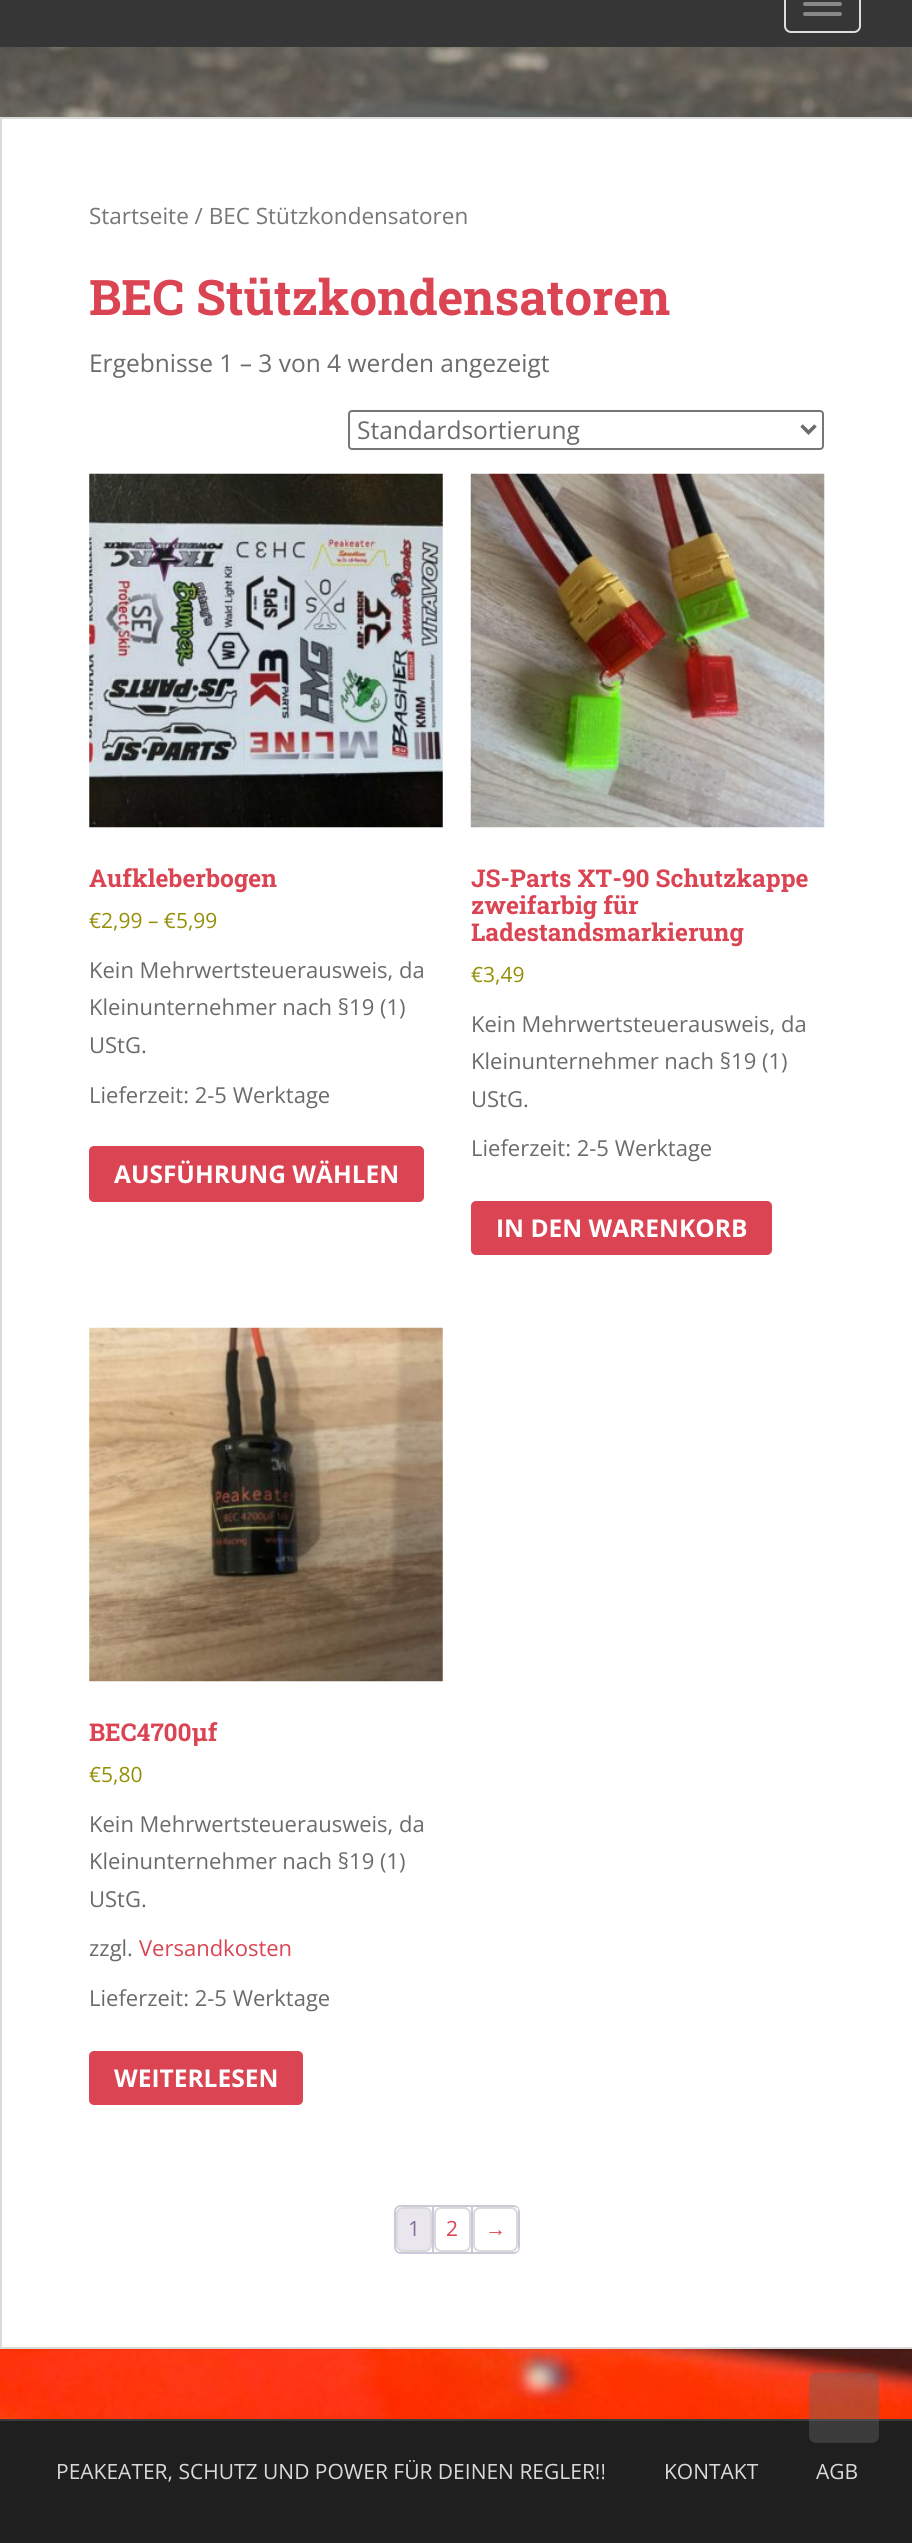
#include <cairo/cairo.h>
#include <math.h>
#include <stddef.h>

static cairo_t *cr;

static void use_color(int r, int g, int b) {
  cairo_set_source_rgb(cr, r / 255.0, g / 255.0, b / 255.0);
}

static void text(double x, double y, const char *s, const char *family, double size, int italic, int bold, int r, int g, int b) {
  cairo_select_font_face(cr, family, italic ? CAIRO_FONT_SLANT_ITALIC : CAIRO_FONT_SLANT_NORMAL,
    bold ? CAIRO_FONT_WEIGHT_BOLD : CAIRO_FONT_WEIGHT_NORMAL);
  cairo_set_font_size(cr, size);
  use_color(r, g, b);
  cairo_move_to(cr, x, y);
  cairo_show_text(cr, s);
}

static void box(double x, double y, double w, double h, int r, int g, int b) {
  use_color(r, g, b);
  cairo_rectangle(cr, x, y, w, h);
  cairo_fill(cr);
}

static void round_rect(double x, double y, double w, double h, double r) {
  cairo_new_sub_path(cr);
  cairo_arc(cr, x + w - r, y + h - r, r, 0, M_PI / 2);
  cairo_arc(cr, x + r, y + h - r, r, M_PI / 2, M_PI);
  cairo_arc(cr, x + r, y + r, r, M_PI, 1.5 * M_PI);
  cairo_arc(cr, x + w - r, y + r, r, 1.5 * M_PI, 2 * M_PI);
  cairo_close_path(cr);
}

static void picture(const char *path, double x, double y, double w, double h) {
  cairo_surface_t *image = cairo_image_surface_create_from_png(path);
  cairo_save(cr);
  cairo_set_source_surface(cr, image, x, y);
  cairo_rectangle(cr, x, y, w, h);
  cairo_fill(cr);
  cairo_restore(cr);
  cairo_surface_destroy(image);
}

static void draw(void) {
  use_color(255, 255, 255);
  cairo_paint(cr);
  picture("img_01.png", 0, 47, 912, 2372);
  box(0, 0, 912, 47, 54, 54, 54);
  round_rect(785, -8, 75, 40, 6);
  use_color(221, 221, 221);
  cairo_stroke(cr);
  use_color(136, 136, 136);
  round_rect(803, 2, 39, 4, 2);
  cairo_fill(cr);
  round_rect(803, 12, 39, 4, 2);
  cairo_fill(cr);
  use_color(255, 255, 255);
  cairo_rectangle(cr, 1, 118, 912, 2230);
  cairo_fill_preserve(cr);
  use_color(218, 218, 218);
  cairo_stroke(cr);
  round_rect(349, 411, 474, 38, 3);
  use_color(118, 118, 118);
  cairo_stroke(cr);
  cairo_new_path(cr);
  cairo_move_to(cr, 801.5, 425.5);
  cairo_line_to(cr, 808.5, 432.5);
  cairo_line_to(cr, 815.5, 425.5);
  use_color(107, 107, 107);
  cairo_set_line_width(cr, 3.5);
  cairo_stroke(cr);
  picture("img_02.png", 89, 473, 354, 355);
  use_color(218, 68, 83);
  round_rect(89, 1146, 335, 56, 5);
  cairo_fill(cr);
  picture("img_03.png", 470, 473, 355, 355);
  round_rect(471, 1201, 301, 54, 5);
  cairo_fill(cr);
  picture("img_04.png", 89, 1327, 354, 355);
  round_rect(89, 2051, 214, 54, 5);
  cairo_fill(cr);
  use_color(207, 200, 216);
  cairo_set_fill_rule(cr, CAIRO_FILL_RULE_EVEN_ODD);
  cairo_new_path(cr);
  cairo_move_to(cr, 401, 2205);
  cairo_line_to(cr, 513, 2205);
  cairo_curve_to(cr, 517, 2205, 520, 2208, 520, 2212);
  cairo_line_to(cr, 520, 2247);
  cairo_curve_to(cr, 520, 2251, 517, 2254, 513, 2254);
  cairo_line_to(cr, 401, 2254);
  cairo_curve_to(cr, 397, 2254, 394, 2251, 394, 2247);
  cairo_line_to(cr, 394, 2212);
  cairo_curve_to(cr, 394, 2208, 397, 2205, 401, 2205);
  cairo_close_path(cr);
  cairo_move_to(cr, 401, 2207);
  cairo_line_to(cr, 513, 2207);
  cairo_curve_to(cr, 517, 2207, 520, 2209, 520, 2212);
  cairo_line_to(cr, 520, 2247);
  cairo_curve_to(cr, 520, 2250, 517, 2252, 513, 2252);
  cairo_line_to(cr, 401, 2252);
  cairo_curve_to(cr, 398, 2252, 396, 2250, 396, 2247);
  cairo_line_to(cr, 396, 2212);
  cairo_curve_to(cr, 396, 2209, 398, 2207, 401, 2207);
  cairo_close_path(cr);
  cairo_fill(cr);
  box(432, 2207, 2, 45, 207, 200, 216);
  use_color(233, 230, 237);
  round_rect(397, 2208, 34, 43, 6);
  cairo_fill_preserve(cr);
  use_color(218, 218, 218);
  cairo_set_line_width(cr, 2);
  cairo_stroke(cr);
  box(471, 2207, 2, 45, 207, 200, 216);
  round_rect(435, 2208, 35, 43, 6);
  use_color(218, 218, 218);
  cairo_stroke(cr);
  use_color(207, 200, 216);
  cairo_set_fill_rule(cr, CAIRO_FILL_RULE_WINDING);
  cairo_new_path(cr);
  cairo_move_to(cr, 518, 2209);
  cairo_curve_to(cr, 519, 2209, 520, 2211, 520, 2212);
  cairo_line_to(cr, 520, 2247);
  cairo_curve_to(cr, 520, 2248, 519, 2250, 518, 2250);
  cairo_close_path(cr);
  cairo_fill(cr);
  round_rect(474, 2208, 43, 43, 6);
  use_color(218, 218, 218);
  cairo_stroke(cr);
  box(0, 2421, 912, 122, 31, 31, 31);
  box(0, 2419, 912, 2, 58, 58, 58);
  cairo_set_source_rgba(cr, 0.392, 0.392, 0.392, 0.4);
  round_rect(809, 2373, 70, 70, 7);
  cairo_fill(cr);
  text(89, 224, "Startseite / BEC Stützkondensatoren", "Open Sans", 22.5, 0, 0, 118, 118, 118);
  text(89, 315, "BEC Stützkondensatoren", "Roboto Slab", 49, 0, 1, 218, 68, 83);
  text(89, 372, "Ergebnisse 1 – 3 von 4 werden angezeigt", "Open Sans", 24.5, 0, 0, 107, 107, 107);
  text(357, 439, "Standardsortierung", "Open Sans", 24.5, 0, 0, 107, 107, 107);
  text(89, 887, "Aufkleberbogen", "Roboto Slab", 24.5, 0, 1, 218, 68, 83);
  text(89, 928, "€2,99 – €5,99", "Open Sans", 21, 0, 0, 149, 142, 9);
  text(89, 978, "Kein Mehrwertsteuerausweis, da", "Open Sans", 22, 0, 0, 107, 107, 107);
  text(89, 1015, "Kleinunternehmer nach §19 (1)", "Open Sans", 22, 0, 0, 107, 107, 107);
  text(89, 1053, "UStG.", "Open Sans", 22, 0, 0, 107, 107, 107);
  text(89, 1103, "Lieferzeit: 2-5 Werktage", "Open Sans", 22, 0, 0, 107, 107, 107);
  text(114, 1183, "AUSFÜHRUNG WÄHLEN", "Open Sans", 24.5, 0, 1, 255, 255, 255);
  text(471, 887, "JS-Parts XT-90 Schutzkappe", "Roboto Slab", 24.5, 0, 1, 218, 68, 83);
  text(471, 914, "zweifarbig für", "Roboto Slab", 24.5, 0, 1, 218, 68, 83);
  text(471, 941, "Ladestandsmarkierung", "Roboto Slab", 24.5, 0, 1, 218, 68, 83);
  text(471, 982, "€3,49", "Open Sans", 21, 0, 0, 149, 142, 9);
  text(471, 1032, "Kein Mehrwertsteuerausweis, da", "Open Sans", 22, 0, 0, 107, 107, 107);
  text(471, 1069, "Kleinunternehmer nach §19 (1)", "Open Sans", 22, 0, 0, 107, 107, 107);
  text(471, 1107, "UStG.", "Open Sans", 22, 0, 0, 107, 107, 107);
  text(471, 1156, "Lieferzeit: 2-5 Werktage", "Open Sans", 22, 0, 0, 107, 107, 107);
  text(496, 1237, "IN DEN WARENKORB", "Open Sans", 24.5, 0, 1, 255, 255, 255);
  text(89, 1741, "BEC4700µf", "Roboto Slab", 24.5, 0, 1, 218, 68, 83);
  text(89, 1782, "€5,80", "Open Sans", 21, 0, 0, 149, 142, 9);
  text(89, 1832, "Kein Mehrwertsteuerausweis, da", "Open Sans", 22, 0, 0, 107, 107, 107);
  text(89, 1869, "Kleinunternehmer nach §19 (1)", "Open Sans", 22, 0, 0, 107, 107, 107);
  text(89, 1907, "UStG.", "Open Sans", 22, 0, 0, 107, 107, 107);
  text(89, 1956, "zzgl.", "Open Sans", 22, 0, 0, 107, 107, 107);
  text(139, 1956, "Versandkosten", "Open Sans", 22, 0, 0, 218, 68, 83);
  text(89, 2006, "Lieferzeit: 2-5 Werktage", "Open Sans", 22, 0, 0, 107, 107, 107);
  text(114, 2087, "WEITERLESEN", "Open Sans", 24.5, 0, 1, 255, 255, 255);
  text(408, 2236, "1", "Open Sans", 21, 0, 0, 129, 111, 152);
  text(446, 2236, "2", "Open Sans", 21, 0, 0, 218, 68, 83);
  text(485, 2236, "→", "Liberation Sans", 21, 0, 0, 218, 68, 83);
  text(56, 2479, "PEAKEATER, SCHUTZ UND POWER FÜR DEINEN REGLER!!", "Open Sans", 21, 0, 0, 218, 218, 218);
  text(664, 2479, "KONTAKT", "Open Sans", 21, 0, 0, 218, 218, 218);
  text(816, 2479, "AGB", "Open Sans", 21, 0, 0, 218, 218, 218);
}

int main(void) {
  cairo_surface_t *surface = cairo_image_surface_create(CAIRO_FORMAT_RGB24, 912, 2543);
  cr = cairo_create(surface);
  cairo_font_options_t *options = cairo_font_options_create();
  cairo_font_options_set_hint_metrics(options, CAIRO_HINT_METRICS_OFF);
  cairo_font_options_set_hint_style(options, CAIRO_HINT_STYLE_NONE);
  cairo_set_font_options(cr, options);
  cairo_set_miter_limit(cr, 4);
  draw();
  cairo_surface_write_to_png(surface, "out.png");
  cairo_font_options_destroy(options);
  cairo_destroy(cr);
  cairo_surface_destroy(surface);
  return 0;
}
